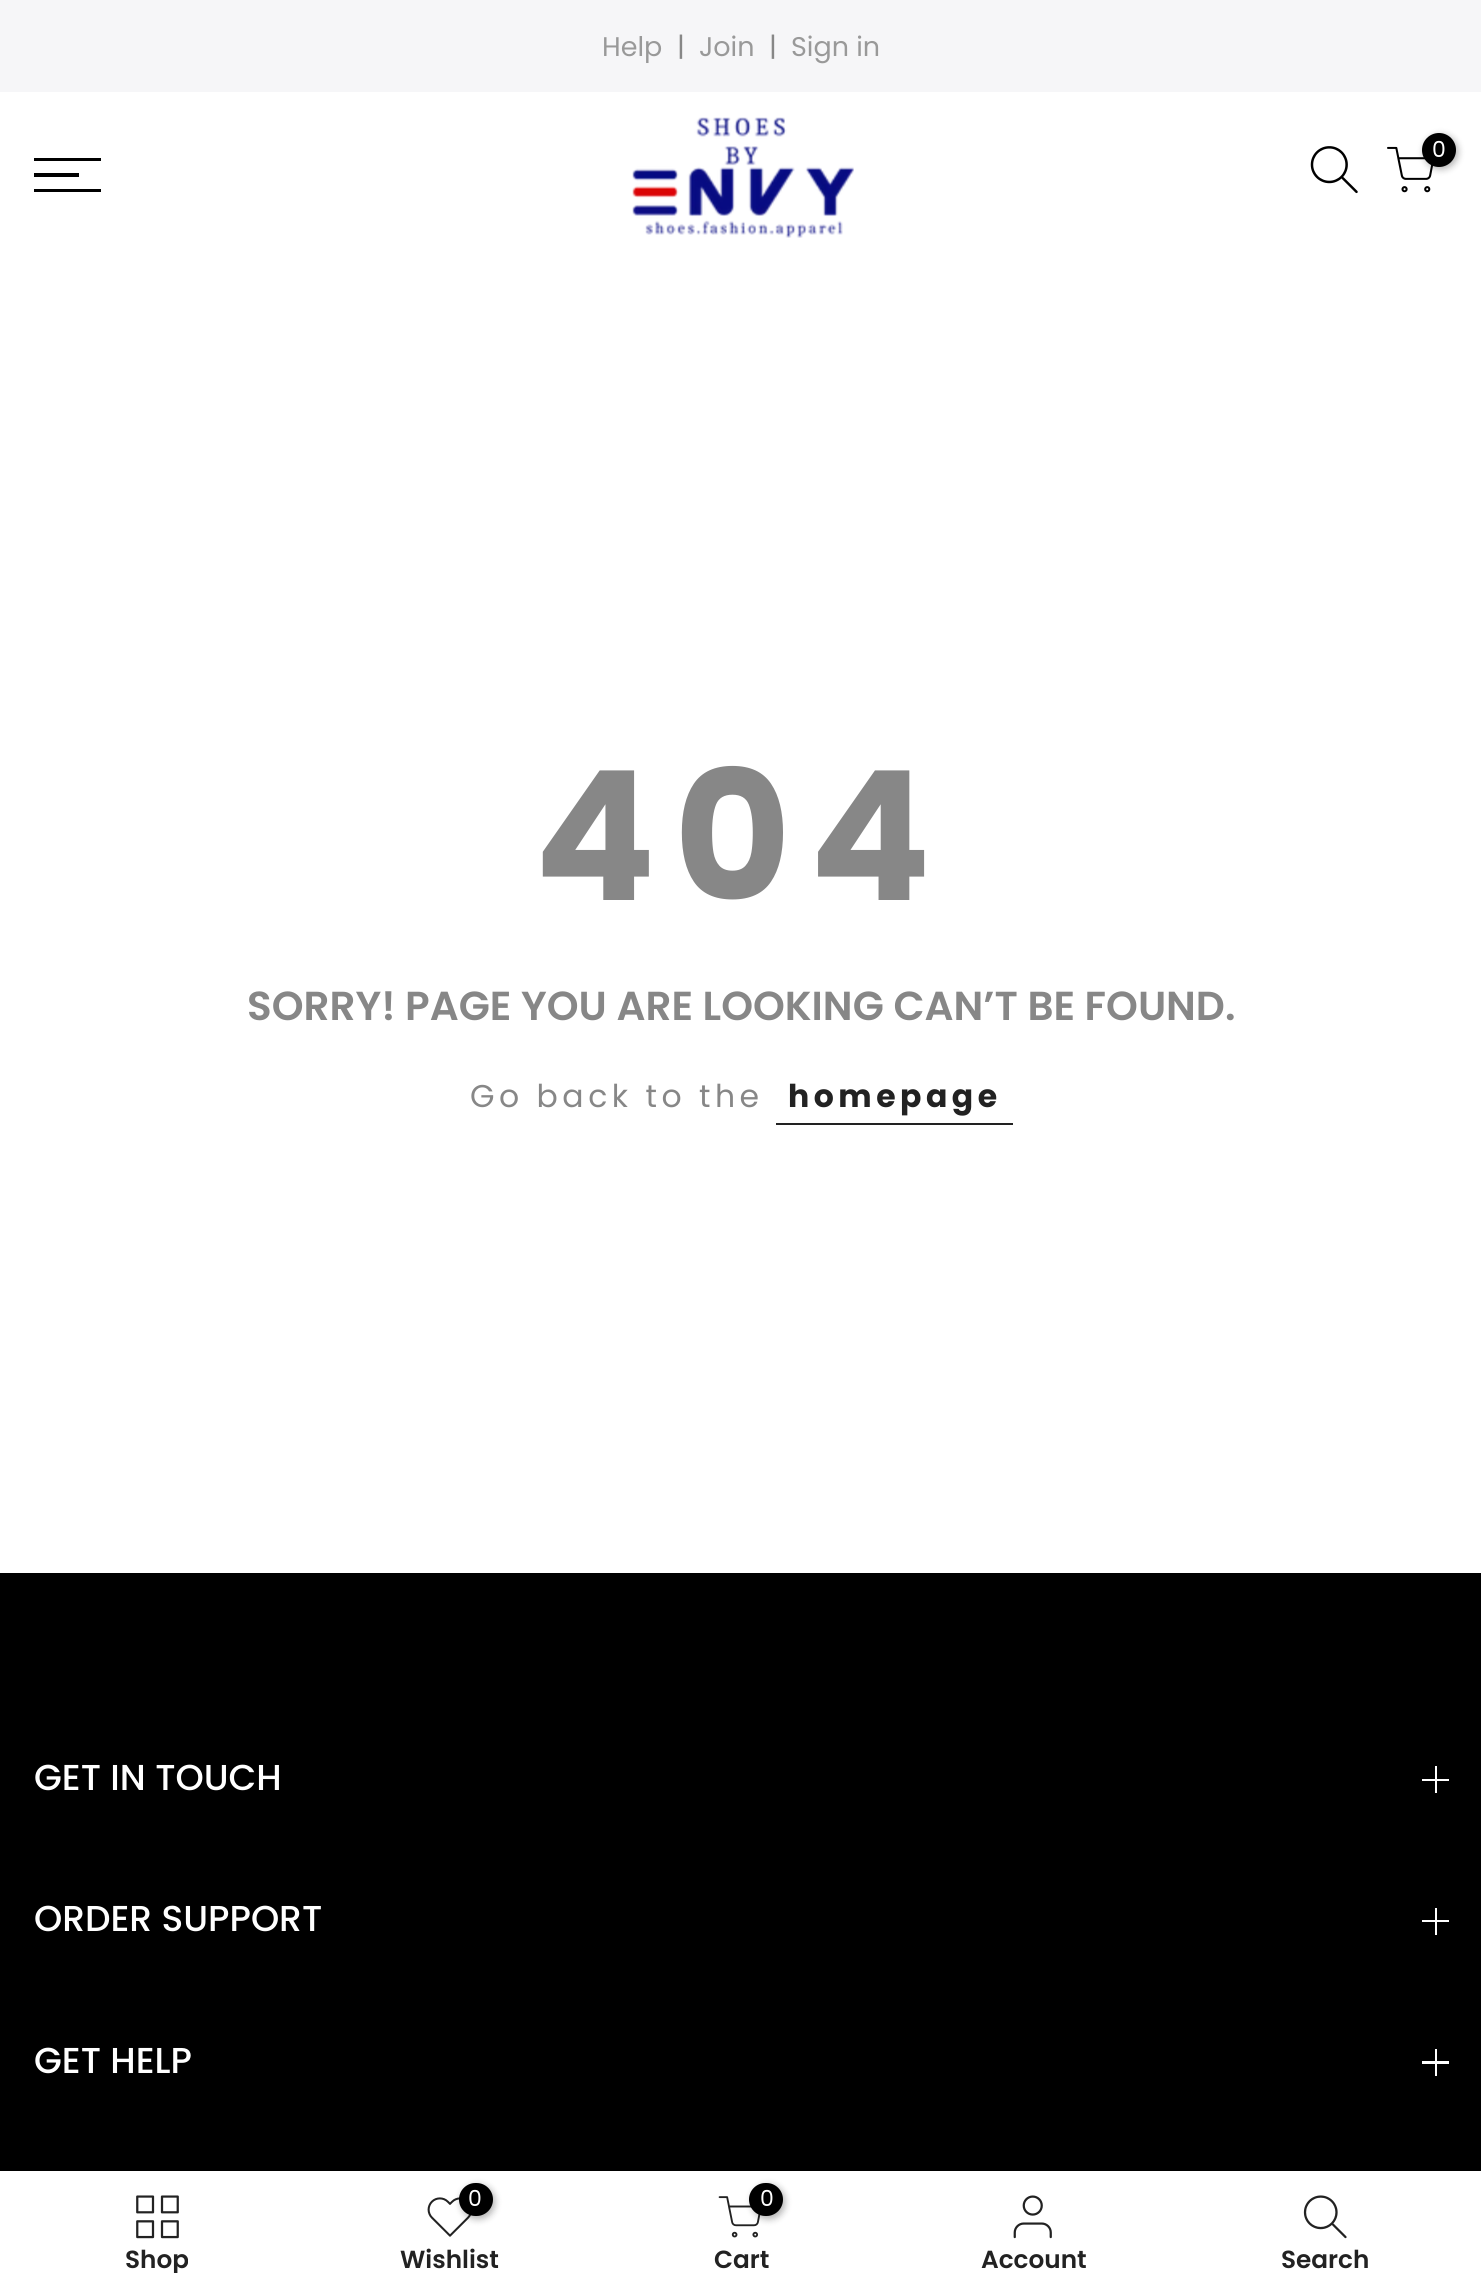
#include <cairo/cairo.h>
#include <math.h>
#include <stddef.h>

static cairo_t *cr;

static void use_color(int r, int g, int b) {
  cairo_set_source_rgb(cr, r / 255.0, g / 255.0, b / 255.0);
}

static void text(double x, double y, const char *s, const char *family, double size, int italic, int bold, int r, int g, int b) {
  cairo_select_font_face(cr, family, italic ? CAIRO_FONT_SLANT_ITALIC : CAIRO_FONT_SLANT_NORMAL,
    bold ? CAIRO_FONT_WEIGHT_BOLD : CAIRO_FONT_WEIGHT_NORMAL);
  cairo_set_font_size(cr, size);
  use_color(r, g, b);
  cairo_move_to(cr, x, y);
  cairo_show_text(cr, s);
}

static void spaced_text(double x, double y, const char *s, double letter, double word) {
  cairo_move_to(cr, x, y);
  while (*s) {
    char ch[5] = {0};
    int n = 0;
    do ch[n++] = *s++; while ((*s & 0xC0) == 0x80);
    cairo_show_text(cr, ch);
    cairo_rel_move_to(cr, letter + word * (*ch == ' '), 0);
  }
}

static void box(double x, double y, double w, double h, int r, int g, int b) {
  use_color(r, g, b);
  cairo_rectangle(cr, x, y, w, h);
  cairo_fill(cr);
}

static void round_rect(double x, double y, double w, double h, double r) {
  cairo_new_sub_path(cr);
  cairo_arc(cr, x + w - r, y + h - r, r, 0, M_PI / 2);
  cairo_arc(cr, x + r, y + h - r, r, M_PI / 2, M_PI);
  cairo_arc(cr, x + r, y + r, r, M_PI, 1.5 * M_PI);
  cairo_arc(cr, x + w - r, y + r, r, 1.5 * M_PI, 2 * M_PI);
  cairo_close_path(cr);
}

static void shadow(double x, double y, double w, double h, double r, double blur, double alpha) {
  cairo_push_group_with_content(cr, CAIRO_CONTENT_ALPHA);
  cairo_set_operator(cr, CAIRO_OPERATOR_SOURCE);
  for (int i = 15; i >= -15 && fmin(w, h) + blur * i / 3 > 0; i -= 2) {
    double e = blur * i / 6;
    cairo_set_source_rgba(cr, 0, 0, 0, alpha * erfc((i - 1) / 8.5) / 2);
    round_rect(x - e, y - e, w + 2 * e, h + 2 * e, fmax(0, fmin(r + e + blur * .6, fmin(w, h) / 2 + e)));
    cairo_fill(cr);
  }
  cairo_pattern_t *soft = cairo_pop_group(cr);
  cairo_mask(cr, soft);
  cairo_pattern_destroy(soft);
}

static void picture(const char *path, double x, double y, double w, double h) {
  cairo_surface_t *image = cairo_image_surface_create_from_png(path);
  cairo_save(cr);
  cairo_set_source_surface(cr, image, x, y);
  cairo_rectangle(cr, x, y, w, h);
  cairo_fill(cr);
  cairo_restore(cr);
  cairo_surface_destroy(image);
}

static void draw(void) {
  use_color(255, 255, 255);
  cairo_paint(cr);
  box(0, 0, 1481, 92, 246, 246, 248);
  picture("img_01.png", 632, 117, 222, 121);
  picture("img_02.png", 1310, 146, 48, 48);
  picture("img_03.png", 1387, 146, 47, 47);
  use_color(0, 0, 0);
  shadow(1424, 135, 34, 34, 17, 3.5, 0.3);
  use_color(0, 0, 0);
  cairo_arc(cr, 1439, 150, 17, 0, 2 * M_PI);
  cairo_fill(cr);
  box(34, 158, 67, 3, 0, 0, 0);
  box(34, 173, 45, 4, 0, 0, 0);
  box(34, 189, 67, 3, 0, 0, 0);
  box(776, 1123, 237, 2, 34, 34, 34);
  box(0, 1573, 1481, 598, 0, 0, 0);
  box(1435, 1766, 2, 27, 255, 255, 255);
  box(1422, 1779, 27, 2, 255, 255, 255);
  box(1435, 1908, 2, 27, 255, 255, 255);
  box(1422, 1920, 27, 2, 255, 255, 255);
  box(1435, 2049, 2, 27, 255, 255, 255);
  box(1422, 2061, 27, 3, 255, 255, 255);
  picture("img_04.png", 136, 2195, 43, 44);
  picture("img_05.png", 427, 2197, 44, 40);
  use_color(0, 0, 0);
  shadow(461, 2185, 34, 34, 17, 3.5, 0.3);
  use_color(0, 0, 0);
  round_rect(459, 2183, 34, 33, 16.5);
  cairo_fill(cr);
  picture("img_06.png", 718, 2196, 43, 42);
  use_color(0, 0, 0);
  shadow(752, 2185, 33, 34, 16.5, 3.5, 0.3);
  use_color(0, 0, 0);
  round_rect(749, 2183, 34, 33, 16.5);
  cairo_fill(cr);
  picture("img_07.png", 1013, 2195, 39, 44);
  picture("img_08.png", 1303, 2195, 44, 44);
  text(602, 56, "Help", "Poppins", 27, 0, 0, 153, 153, 153);
  text(677, 56, "|", "Poppins", 27, 0, 0, 135, 135, 135);
  text(699, 56, "Join", "Poppins", 27, 0, 0, 153, 153, 153);
  text(769, 56, "|", "Poppins", 27, 0, 0, 135, 135, 135);
  text(791, 56, "Sign in", "Poppins", 27, 0, 0, 153, 153, 153);
  text(1432, 157, "0", "Poppins", 22, 0, 0, 255, 255, 255);
  cairo_select_font_face(cr, "Poppins", CAIRO_FONT_SLANT_NORMAL, CAIRO_FONT_WEIGHT_BOLD);
  cairo_set_font_size(cr, 180);
  use_color(135, 135, 135);
  spaced_text(534, 900, "404", 18, 0);
  text(247, 1020, "SORRY! PAGE YOU ARE LOOKING CAN’T BE FOUND.", "Poppins SemiBold", 40.5, 0, 0, 135, 135, 135);
  cairo_select_font_face(cr, "Poppins", CAIRO_FONT_SLANT_NORMAL, CAIRO_FONT_WEIGHT_NORMAL);
  cairo_set_font_size(cr, 31.5);
  spaced_text(470, 1107, "Go back to the", 4.5, 0);
  cairo_select_font_face(cr, "Poppins", CAIRO_FONT_SLANT_NORMAL, CAIRO_FONT_WEIGHT_BOLD);
  use_color(34, 34, 34);
  spaced_text(788, 1107, "homepage", 4.5, 0);
  text(34, 1790, "GET IN TOUCH", "Poppins Medium", 36, 0, 0, 255, 255, 255);
  text(34, 1931, "ORDER SUPPORT", "Poppins Medium", 36, 0, 0, 255, 255, 255);
  text(34, 2073, "GET HELP", "Poppins Medium", 36, 0, 0, 255, 255, 255);
  cairo_save(cr);
  cairo_rectangle(cr, 34, 2248, 247, 25);
  cairo_clip(cr);
  text(125, 2268, "Shop", "Poppins SemiBold", 24.75, 0, 0, 34, 34, 34);
  cairo_restore(cr);
  text(468, 2206, "0", "Poppins", 22, 0, 0, 255, 255, 255);
  text(400, 2268, "Wishlist", "Poppins SemiBold", 24.75, 0, 0, 34, 34, 34);
  text(760, 2206, "0", "Poppins", 22, 0, 0, 255, 255, 255);
  text(714, 2268, "Cart", "Poppins SemiBold", 24.75, 0, 0, 34, 34, 34);
  text(981, 2268, "Account", "Poppins SemiBold", 24.75, 0, 0, 34, 34, 34);
  text(1281, 2268, "Search", "Poppins SemiBold", 24.75, 0, 0, 34, 34, 34);
}

int main(void) {
  cairo_surface_t *surface = cairo_image_surface_create(CAIRO_FORMAT_RGB24, 1481, 2293);
  cr = cairo_create(surface);
  cairo_font_options_t *options = cairo_font_options_create();
  cairo_font_options_set_hint_metrics(options, CAIRO_HINT_METRICS_OFF);
  cairo_font_options_set_hint_style(options, CAIRO_HINT_STYLE_NONE);
  cairo_set_font_options(cr, options);
  cairo_set_miter_limit(cr, 4);
  draw();
  cairo_surface_write_to_png(surface, "out.png");
  cairo_font_options_destroy(options);
  cairo_destroy(cr);
  cairo_surface_destroy(surface);
  return 0;
}
